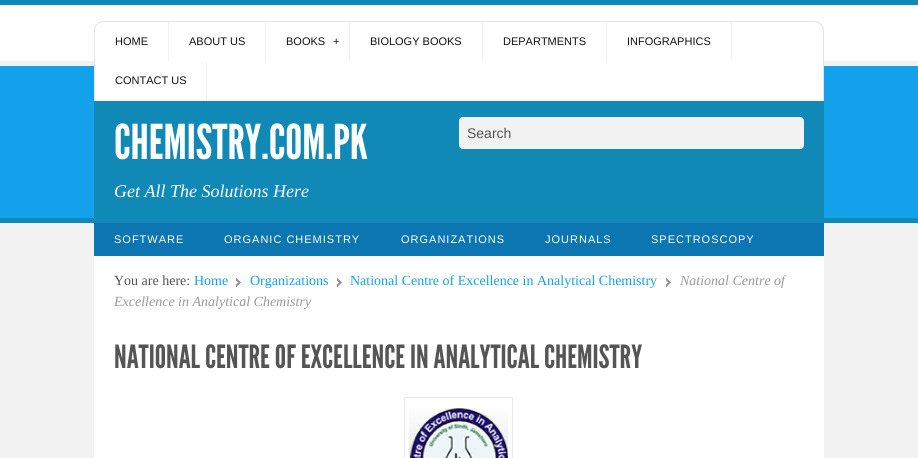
#include <cairo/cairo.h>
#include <math.h>
#include <stddef.h>

static cairo_t *cr;

static void use_color(int r, int g, int b) {
  cairo_set_source_rgb(cr, r / 255.0, g / 255.0, b / 255.0);
}

static void text(double x, double y, const char *s, const char *family, double size, int italic, int bold, int r, int g, int b) {
  cairo_select_font_face(cr, family, italic ? CAIRO_FONT_SLANT_ITALIC : CAIRO_FONT_SLANT_NORMAL,
    bold ? CAIRO_FONT_WEIGHT_BOLD : CAIRO_FONT_WEIGHT_NORMAL);
  cairo_set_font_size(cr, size);
  use_color(r, g, b);
  cairo_move_to(cr, x, y);
  cairo_show_text(cr, s);
}

static void spaced_text(double x, double y, const char *s, double letter, double word) {
  cairo_move_to(cr, x, y);
  while (*s) {
    char ch[5] = {0};
    int n = 0;
    do ch[n++] = *s++; while ((*s & 0xC0) == 0x80);
    cairo_show_text(cr, ch);
    cairo_rel_move_to(cr, letter + word * (*ch == ' '), 0);
  }
}

static void box(double x, double y, double w, double h, int r, int g, int b) {
  use_color(r, g, b);
  cairo_rectangle(cr, x, y, w, h);
  cairo_fill(cr);
}

static void round_rect(double x, double y, double w, double h, double r) {
  cairo_new_sub_path(cr);
  cairo_arc(cr, x + w - r, y + h - r, r, 0, M_PI / 2);
  cairo_arc(cr, x + r, y + h - r, r, M_PI / 2, M_PI);
  cairo_arc(cr, x + r, y + r, r, M_PI, 1.5 * M_PI);
  cairo_arc(cr, x + w - r, y + r, r, 1.5 * M_PI, 2 * M_PI);
  cairo_close_path(cr);
}

static void picture(const char *path, double x, double y, double w, double h) {
  cairo_surface_t *image = cairo_image_surface_create_from_png(path);
  cairo_save(cr);
  cairo_set_source_surface(cr, image, x, y);
  cairo_rectangle(cr, x, y, w, h);
  cairo_fill(cr);
  cairo_restore(cr);
  cairo_surface_destroy(image);
}

static void draw(void) {
  use_color(242, 242, 242);
  cairo_paint(cr);
  box(0, 0, 918, 5, 17, 137, 183);
  box(0, 5, 918, 56, 255, 255, 255);
  box(0, 66, 918, 152, 19, 161, 236);
  use_color(255, 255, 255);
  cairo_new_path(cr);
  cairo_move_to(cr, 104, 21);
  cairo_line_to(cr, 814, 21);
  cairo_curve_to(cr, 819.5, 21, 824, 25.5, 824, 31);
  cairo_line_to(cr, 824, 101);
  cairo_line_to(cr, 94, 101);
  cairo_line_to(cr, 94, 31);
  cairo_curve_to(cr, 94, 25.5, 98.5, 21, 104, 21);
  cairo_close_path(cr);
  cairo_fill(cr);
  use_color(229, 229, 229);
  cairo_set_fill_rule(cr, CAIRO_FILL_RULE_EVEN_ODD);
  cairo_new_path(cr);
  cairo_move_to(cr, 104, 21);
  cairo_line_to(cr, 814, 21);
  cairo_curve_to(cr, 820, 21, 824, 25, 824, 31);
  cairo_line_to(cr, 824, 101);
  cairo_line_to(cr, 94, 101);
  cairo_line_to(cr, 94, 31);
  cairo_curve_to(cr, 94, 25, 98, 21, 104, 21);
  cairo_close_path(cr);
  cairo_move_to(cr, 104, 22);
  cairo_line_to(cr, 814, 22);
  cairo_curve_to(cr, 819, 22, 823, 26, 823, 31);
  cairo_line_to(cr, 823, 101);
  cairo_line_to(cr, 95, 101);
  cairo_line_to(cr, 95, 31);
  cairo_curve_to(cr, 95, 26, 99, 22, 104, 22);
  cairo_close_path(cr);
  cairo_fill(cr);
  box(168, 22, 1, 39, 242, 242, 242);
  box(265, 22, 1, 39, 242, 242, 242);
  box(349, 22, 1, 39, 242, 242, 242);
  box(482, 22, 1, 39, 242, 242, 242);
  box(606, 22, 1, 39, 242, 242, 242);
  box(731, 22, 1, 39, 242, 242, 242);
  box(206, 61, 1, 40, 242, 242, 242);
  box(0, 218, 918, 5, 17, 137, 183);
  box(94, 101, 730, 117, 17, 137, 183);
  use_color(242, 242, 242);
  round_rect(459.5, 117.5, 344, 31, 3.5);
  cairo_fill_preserve(cr);
  cairo_set_line_width(cr, 1);
  cairo_stroke(cr);
  box(94, 223, 730, 33, 11, 118, 178);
  box(94, 256, 730, 202, 255, 255, 255);
  picture("img_01.png", 236, 278, 5, 9);
  picture("img_01.png", 337, 278, 5, 9);
  picture("img_01.png", 666, 278, 5, 9);
  cairo_rectangle(cr, 404.5, 397.5, 108, 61);
  use_color(235, 234, 232);
  cairo_stroke(cr);
  picture("img_02.png", 409, 408, 99, 50);
  text(115, 45, "HOME", "Liberation Sans", 11, 0, 0, 18, 18, 18);
  text(189, 45, "ABOUT US", "Liberation Sans", 11, 0, 0, 18, 18, 18);
  text(286, 45, "BOOKS", "Liberation Sans", 11, 0, 0, 18, 18, 18);
  text(333, 45, "+", "Liberation Sans", 11, 0, 0, 18, 18, 18);
  text(370, 45, "BIOLOGY BOOKS", "Liberation Sans", 11, 0, 0, 18, 18, 18);
  text(503, 45, "DEPARTMENTS", "Liberation Sans", 11, 0, 0, 18, 18, 18);
  text(627, 45, "INFOGRAPHICS", "Liberation Sans", 11, 0, 0, 18, 18, 18);
  text(115, 84, "CONTACT US", "Liberation Sans", 11, 0, 0, 18, 18, 18);
  text(114, 159, "CHEMISTRY.COM.PK", "League Gothic", 48, 0, 0, 255, 255, 255);
  text(114, 197, "Get All The Solutions Here", "Liberation Serif", 18, 1, 0, 255, 255, 255);
  text(467, 138, "Search", "Liberation Sans", 14, 0, 0, 85, 85, 85);
  cairo_set_font_size(cr, 11);
  use_color(255, 255, 255);
  spaced_text(114, 243, "SOFTWARE", 1, 0);
  spaced_text(224, 243, "ORGANIC CHEMISTRY", 1, 0);
  spaced_text(401, 243, "ORGANIZATIONS", 1, 0);
  spaced_text(545, 243, "JOURNALS", 1, 0);
  spaced_text(651, 243, "SPECTROSCOPY", 1, 0);
  text(114, 285, "You are here:", "Liberation Serif", 14, 0, 0, 85, 85, 85);
  text(194, 285, "Home", "Liberation Serif", 14, 0, 0, 19, 161, 236);
  text(250, 285, "Organizations", "Liberation Serif", 14, 0, 0, 19, 161, 236);
  text(350, 285, "National Centre of Excellence in Analytical Chemistry", "Liberation Serif", 14, 0, 0, 19, 161, 236);
  text(680, 285, "National Centre of", "Liberation Serif", 14, 1, 0, 153, 153, 153);
  text(114, 306, "Excellence in Analytical Chemistry", "Liberation Serif", 14, 1, 0, 153, 153, 153);
  text(114, 368, "NATIONAL CENTRE OF EXCELLENCE IN ANALYTICAL CHEMISTRY", "League Gothic", 32, 0, 0, 85, 85, 85);
}

int main(void) {
  cairo_surface_t *surface = cairo_image_surface_create(CAIRO_FORMAT_RGB24, 918, 458);
  cr = cairo_create(surface);
  cairo_font_options_t *options = cairo_font_options_create();
  cairo_font_options_set_hint_metrics(options, CAIRO_HINT_METRICS_OFF);
  cairo_font_options_set_hint_style(options, CAIRO_HINT_STYLE_NONE);
  cairo_set_font_options(cr, options);
  cairo_set_miter_limit(cr, 4);
  draw();
  cairo_surface_write_to_png(surface, "out.png");
  cairo_font_options_destroy(options);
  cairo_destroy(cr);
  cairo_surface_destroy(surface);
  return 0;
}
